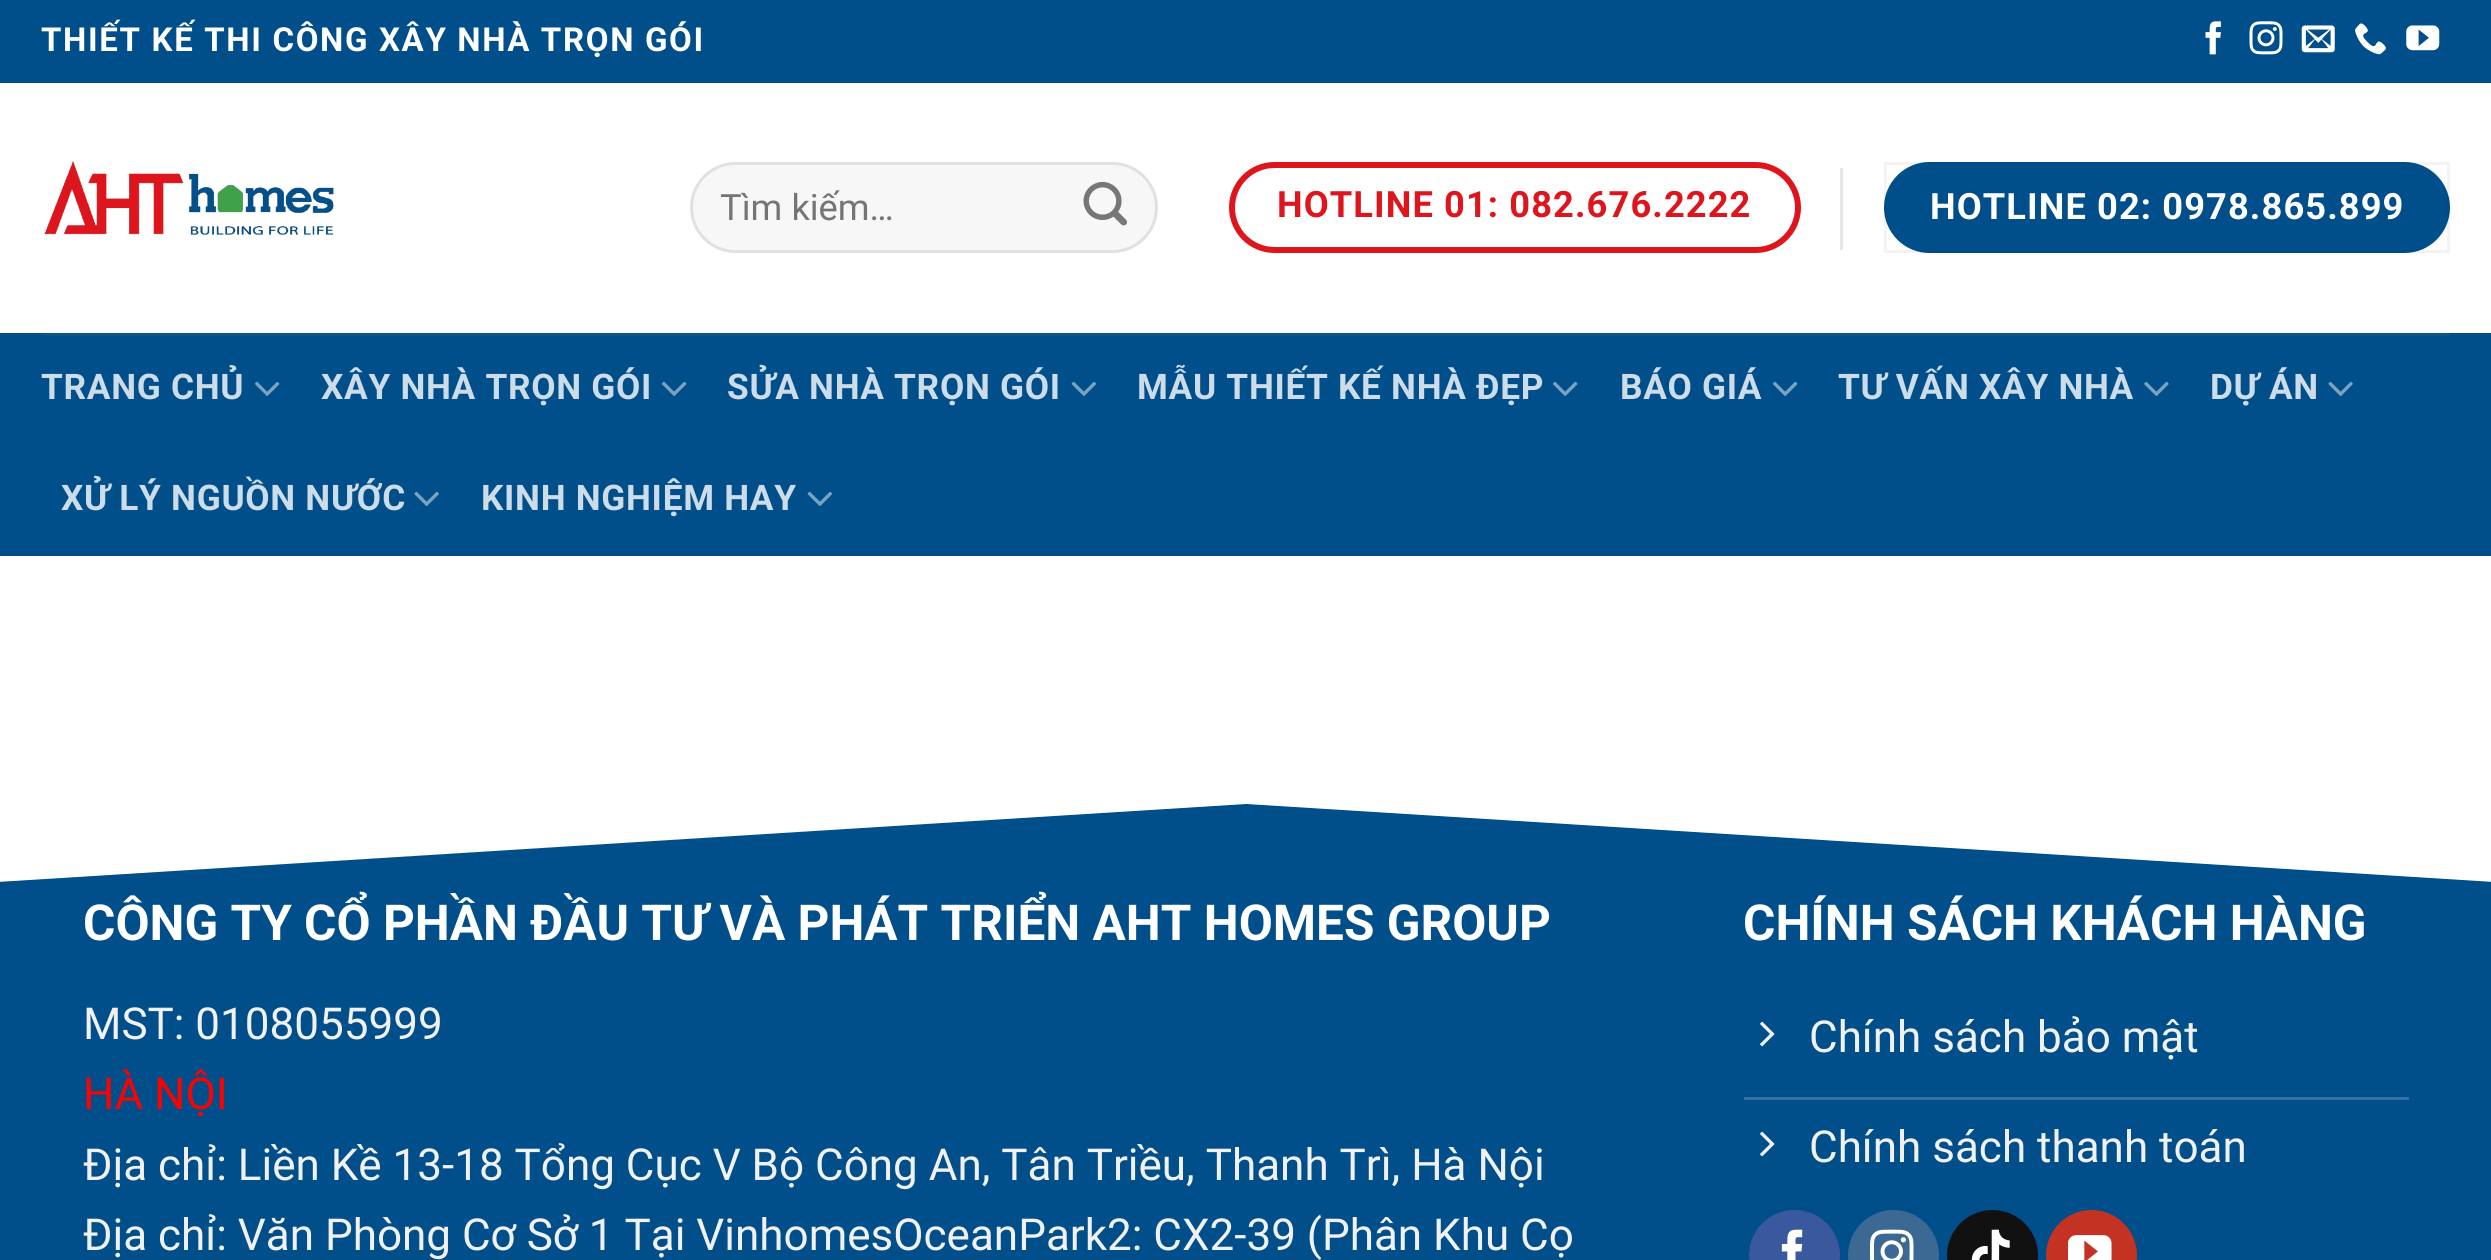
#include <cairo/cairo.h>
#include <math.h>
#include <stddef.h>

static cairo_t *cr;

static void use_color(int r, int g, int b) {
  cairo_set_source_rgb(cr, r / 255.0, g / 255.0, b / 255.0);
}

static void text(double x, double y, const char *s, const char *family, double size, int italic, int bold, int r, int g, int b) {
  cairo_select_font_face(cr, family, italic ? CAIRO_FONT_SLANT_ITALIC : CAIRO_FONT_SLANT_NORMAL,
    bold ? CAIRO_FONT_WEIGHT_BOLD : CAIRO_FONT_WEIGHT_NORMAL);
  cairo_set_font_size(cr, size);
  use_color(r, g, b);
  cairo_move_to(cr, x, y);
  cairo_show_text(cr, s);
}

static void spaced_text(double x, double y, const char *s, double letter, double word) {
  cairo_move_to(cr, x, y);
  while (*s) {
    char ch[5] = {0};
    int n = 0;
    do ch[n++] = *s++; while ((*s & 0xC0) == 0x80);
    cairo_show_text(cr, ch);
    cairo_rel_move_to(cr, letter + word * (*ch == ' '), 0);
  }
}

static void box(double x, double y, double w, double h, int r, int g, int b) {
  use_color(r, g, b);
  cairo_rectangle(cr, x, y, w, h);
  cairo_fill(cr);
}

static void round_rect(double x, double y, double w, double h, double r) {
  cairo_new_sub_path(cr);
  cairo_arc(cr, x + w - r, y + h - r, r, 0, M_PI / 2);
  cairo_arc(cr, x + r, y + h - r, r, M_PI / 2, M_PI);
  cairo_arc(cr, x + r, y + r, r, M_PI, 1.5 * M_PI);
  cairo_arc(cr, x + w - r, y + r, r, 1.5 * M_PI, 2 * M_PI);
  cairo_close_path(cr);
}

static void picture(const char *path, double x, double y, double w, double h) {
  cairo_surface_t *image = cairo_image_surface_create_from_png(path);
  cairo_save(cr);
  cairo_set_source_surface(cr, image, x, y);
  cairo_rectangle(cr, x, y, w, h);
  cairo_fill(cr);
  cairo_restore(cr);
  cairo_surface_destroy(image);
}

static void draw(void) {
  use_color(255, 255, 255);
  cairo_paint(cr);
  box(0, 0, 2491, 83, 0, 79, 139);
  picture("img_01.png", 2205, 21, 16, 34);
  picture("img_02.png", 2249, 21, 34, 34);
  picture("img_03.png", 2301, 25, 34, 28);
  picture("img_04.png", 2355, 23, 31, 32);
  picture("img_05.png", 2406, 25, 34, 26);
  picture("img_06.png", 44, 161, 290, 74);
  use_color(247, 247, 247);
  round_rect(690, 162, 468, 91, 45.5);
  cairo_fill(cr);
  round_rect(691.5, 163.5, 465, 88, 44);
  cairo_set_source_rgba(cr, 0, 0, 0, 0.09);
  cairo_set_line_width(cr, 3);
  cairo_stroke(cr);
  picture("img_07.png", 1083, 181, 44, 45);
  round_rect(1232, 165, 566, 85, 42.5);
  use_color(222, 21, 29);
  cairo_set_line_width(cr, 6);
  cairo_stroke(cr);
  box(1840, 168, 3, 82, 230, 230, 230);
  use_color(0, 79, 139);
  round_rect(1884, 162, 566, 91, 45.5);
  cairo_fill(cr);
  cairo_rectangle(cr, 1885.5, 163.5, 563, 88);
  cairo_set_source_rgba(cr, 0, 0, 0, 0.05);
  cairo_set_line_width(cr, 3);
  cairo_stroke(cr);
  box(0, 333, 2491, 223, 0, 79, 139);
  box(41, 333, 2409, 3, 12, 83, 137);
  picture("img_08.png", 255, 381, 25, 15);
  picture("img_08.png", 662, 381, 25, 15);
  picture("img_09.png", 1071, 381, 25, 15);
  picture("img_08.png", 1553, 381, 25, 15);
  picture("img_08.png", 1773, 381, 25, 15);
  picture("img_10.png", 2144, 381, 25, 15);
  picture("img_11.png", 2328, 381, 25, 15);
  picture("img_11.png", 414, 491, 25, 15);
  picture("img_09.png", 807, 491, 25, 15);
  box(0, 804, 2491, 456, 0, 79, 139);
  use_color(255, 255, 255);
  cairo_new_path(cr);
  cairo_move_to(cr, 1246, 804);
  cairo_line_to(cr, 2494, 882);
  cairo_line_to(cr, 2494, 800);
  cairo_line_to(cr, -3, 800);
  cairo_line_to(cr, -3, 882);
  cairo_close_path(cr);
  cairo_fill(cr);
  box(1744, 1097, 665, 3, 51, 114, 162);
  picture("img_12.png", 1760, 1021, 15, 26);
  picture("img_12.png", 1760, 1131, 15, 26);
  use_color(58, 88, 157);
  cairo_arc(cr, 1794.5, 1255.5, 44, 0, 2 * M_PI);
  cairo_fill_preserve(cr);
  cairo_stroke(cr);
  picture("img_13.png", 1781, 1229, 22, 31);
  use_color(59, 105, 148);
  cairo_arc(cr, 1893.5, 1255.5, 44, 0, 2 * M_PI);
  cairo_fill_preserve(cr);
  cairo_stroke(cr);
  picture("img_14.png", 1870, 1229, 44, 31);
  use_color(17, 17, 17);
  cairo_arc(cr, 1992.5, 1255.5, 44, 0, 2 * M_PI);
  cairo_fill_preserve(cr);
  cairo_stroke(cr);
  picture("img_15.png", 1971, 1229, 39, 31);
  use_color(195, 50, 35);
  cairo_arc(cr, 2091.5, 1255.5, 44, 0, 2 * M_PI);
  cairo_fill_preserve(cr);
  cairo_stroke(cr);
  picture("img_16.png", 2068, 1235, 44, 25);
  cairo_select_font_face(cr, "Roboto", CAIRO_FONT_SLANT_NORMAL, CAIRO_FONT_WEIGHT_BOLD);
  cairo_set_font_size(cr, 33);
  use_color(255, 255, 255);
  spaced_text(41, 51, "THIẾT KẾ THI CÔNG XÂY NHÀ TRỌN GÓI", 1.65, 0);
  text(720, 220, "Tìm kiếm…", "Roboto", 36.25, 0, 0, 117, 117, 117);
  cairo_select_font_face(cr, "Roboto", CAIRO_FONT_SLANT_NORMAL, CAIRO_FONT_WEIGHT_BOLD);
  use_color(222, 21, 29);
  spaced_text(1277, 217, "HOTLINE 01: 082.676.2222", 1.1, 0);
  use_color(255, 255, 255);
  spaced_text(1930, 219, "HOTLINE 02: 0978.865.899", 1.1, 0);
  cairo_set_font_size(cr, 35.25);
  use_color(204, 220, 232);
  spaced_text(41, 399, "TRANG CHỦ", 0.7, 0);
  spaced_text(321, 399, "XÂY NHÀ TRỌN GÓI", 0.7, 0);
  spaced_text(727, 399, "SỬA NHÀ TRỌN GÓI", 0.7, 0);
  spaced_text(1137, 399, "MẪU THIẾT KẾ NHÀ ĐẸP", 0.7, 0);
  spaced_text(1620, 399, "BÁO GIÁ", 0.7, 0);
  spaced_text(1838, 399, "TƯ VẤN XÂY NHÀ", 0.7, 0);
  spaced_text(2210, 399, "DỰ ÁN", 0.7, 0);
  spaced_text(61, 510, "XỬ LÝ NGUỒN NƯỚC", 0.7, 0);
  spaced_text(481, 510, "KINH NGHIỆM HAY", 0.7, 0);
  text(83, 940, "CÔNG TY CỔ PHẦN ĐẦU TƯ VÀ PHÁT TRIỂN AHT HOMES GROUP", "Roboto", 49.5, 0, 1, 255, 255, 255);
  text(83, 1039, "MST: 0108055999", "Roboto", 44, 0, 0, 241, 241, 241);
  text(83, 1109, "HÀ NỘI", "Roboto", 44, 0, 0, 255, 0, 0);
  text(83, 1180, "Địa chỉ: Liền Kề 13-18 Tổng Cục V Bộ Công An, Tân Triều, Thanh Trì, Hà Nội", "Roboto", 44, 0, 0, 241, 241, 241);
  text(83, 1250, "Địa chỉ: Văn Phòng Cơ Sở 1 Tại VinhomesOceanPark2: CX2-39 (Phân Khu Cọ", "Roboto", 44, 0, 0, 241, 241, 241);
  text(1743, 940, "CHÍNH SÁCH KHÁCH HÀNG", "Roboto", 49.5, 0, 1, 255, 255, 255);
  text(1809, 1052, "Chính sách bảo mật", "Roboto", 44, 0, 0, 241, 241, 241);
  text(1809, 1162, "Chính sách thanh toán", "Roboto", 44, 0, 0, 241, 241, 241);
}

int main(void) {
  cairo_surface_t *surface = cairo_image_surface_create(CAIRO_FORMAT_RGB24, 2491, 1260);
  cr = cairo_create(surface);
  cairo_font_options_t *options = cairo_font_options_create();
  cairo_font_options_set_hint_metrics(options, CAIRO_HINT_METRICS_OFF);
  cairo_font_options_set_hint_style(options, CAIRO_HINT_STYLE_NONE);
  cairo_set_font_options(cr, options);
  cairo_set_miter_limit(cr, 4);
  draw();
  cairo_surface_write_to_png(surface, "out.png");
  cairo_font_options_destroy(options);
  cairo_destroy(cr);
  cairo_surface_destroy(surface);
  return 0;
}
